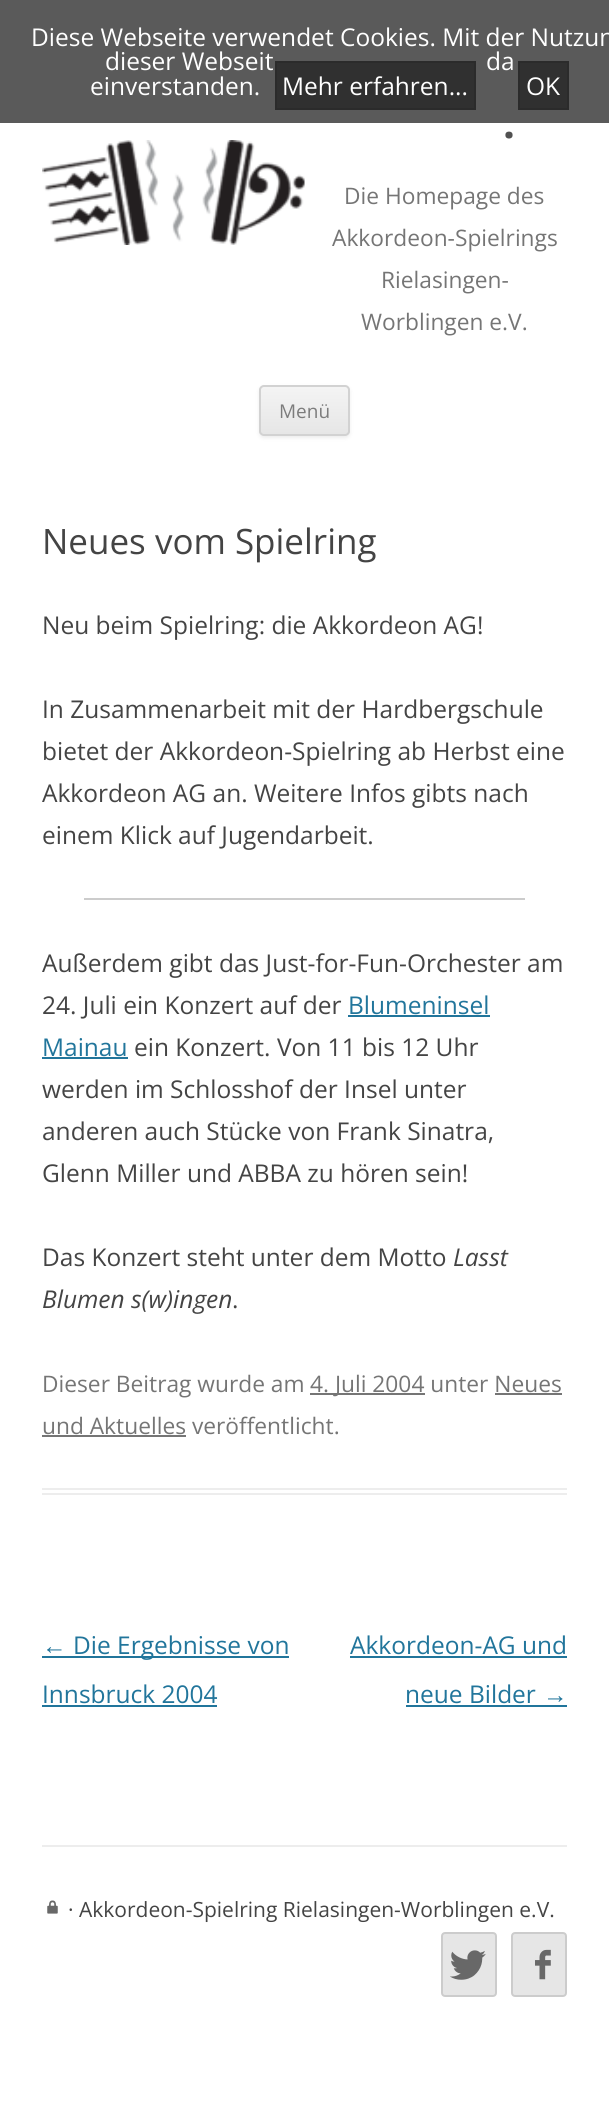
#include <cairo/cairo.h>
#include <math.h>
#include <stddef.h>

static cairo_t *cr;

static void use_color(int r, int g, int b) {
  cairo_set_source_rgb(cr, r / 255.0, g / 255.0, b / 255.0);
}

static void text(double x, double y, const char *s, const char *family, double size, int italic, int bold, int r, int g, int b) {
  cairo_select_font_face(cr, family, italic ? CAIRO_FONT_SLANT_ITALIC : CAIRO_FONT_SLANT_NORMAL,
    bold ? CAIRO_FONT_WEIGHT_BOLD : CAIRO_FONT_WEIGHT_NORMAL);
  cairo_set_font_size(cr, size);
  use_color(r, g, b);
  cairo_move_to(cr, x, y);
  cairo_show_text(cr, s);
}

static void box(double x, double y, double w, double h, int r, int g, int b) {
  use_color(r, g, b);
  cairo_rectangle(cr, x, y, w, h);
  cairo_fill(cr);
}

static void round_rect(double x, double y, double w, double h, double r) {
  cairo_new_sub_path(cr);
  cairo_arc(cr, x + w - r, y + h - r, r, 0, M_PI / 2);
  cairo_arc(cr, x + r, y + h - r, r, M_PI / 2, M_PI);
  cairo_arc(cr, x + r, y + r, r, M_PI, 1.5 * M_PI);
  cairo_arc(cr, x + w - r, y + r, r, 1.5 * M_PI, 2 * M_PI);
  cairo_close_path(cr);
}

static void shadow(double x, double y, double w, double h, double r, double blur, double alpha) {
  cairo_push_group_with_content(cr, CAIRO_CONTENT_ALPHA);
  cairo_set_operator(cr, CAIRO_OPERATOR_SOURCE);
  for (int i = 15; i >= -15 && fmin(w, h) + blur * i / 3 > 0; i -= 2) {
    double e = blur * i / 6;
    cairo_set_source_rgba(cr, 0, 0, 0, alpha * erfc((i - 1) / 8.5) / 2);
    round_rect(x - e, y - e, w + 2 * e, h + 2 * e, fmax(0, fmin(r + e + blur * .6, fmin(w, h) / 2 + e)));
    cairo_fill(cr);
  }
  cairo_pattern_t *soft = cairo_pop_group(cr);
  cairo_mask(cr, soft);
  cairo_pattern_destroy(soft);
}

static void picture(const char *path, double x, double y, double w, double h) {
  cairo_surface_t *image = cairo_image_surface_create_from_png(path);
  cairo_save(cr);
  cairo_set_source_surface(cr, image, x, y);
  cairo_rectangle(cr, x, y, w, h);
  cairo_fill(cr);
  cairo_restore(cr);
  cairo_surface_destroy(image);
}

static void draw(void) {
  cairo_pattern_t *gradient;
  use_color(255, 255, 255);
  cairo_paint(cr);
  box(0, 0, 609, 123, 90, 90, 90);
  use_color(48, 48, 48);
  cairo_rectangle(cr, 276, 62, 199, 47);
  cairo_fill_preserve(cr);
  use_color(43, 43, 43);
  cairo_stroke(cr);
  use_color(48, 48, 48);
  cairo_rectangle(cr, 519, 62, 49, 47);
  cairo_fill_preserve(cr);
  use_color(43, 43, 43);
  cairo_stroke(cr);
  picture("img_01.png", 42, 140, 263, 105);
  use_color(64, 64, 64);
  shadow(259, 387, 91, 51, 5, 2, 0.1);
  cairo_save(cr);
  round_rect(259, 385, 91, 51, 5);
  cairo_clip(cr);
  gradient = cairo_pattern_create_linear(305, 387, 305, 434);
  cairo_pattern_add_color_stop_rgba(gradient, 0, 0.957, 0.957, 0.957, 1);
  cairo_pattern_add_color_stop_rgba(gradient, 1, 0.902, 0.902, 0.902, 1);
  cairo_set_source(cr, gradient);
  cairo_pattern_destroy(gradient);
  cairo_rectangle(cr, 259, 387, 91, 47);
  cairo_fill(cr);
  cairo_restore(cr);
  round_rect(260, 386, 89, 49, 4);
  use_color(210, 210, 210);
  cairo_stroke(cr);
  box(42, 1488, 525, 2, 237, 237, 237);
  box(42, 1493, 525, 2, 237, 237, 237);
  box(84, 898, 441, 2, 204, 204, 204);
  box(348, 1015, 142, 2, 33, 117, 155);
  box(42, 1057, 86, 2, 33, 117, 155);
  box(310, 1393, 115, 2, 117, 117, 117);
  box(495, 1393, 67, 2, 117, 117, 117);
  box(42, 1435, 144, 2, 117, 117, 117);
  box(42, 1656, 247, 2, 33, 117, 155);
  box(42, 1705, 175, 2, 33, 117, 155);
  box(350, 1656, 217, 2, 33, 117, 155);
  box(406, 1705, 161, 2, 33, 117, 155);
  box(42, 1845, 525, 2, 237, 237, 237);
  picture("img_02.png", 47, 1900, 11, 14);
  use_color(230, 230, 230);
  round_rect(442, 1933, 54, 63, 3);
  cairo_fill_preserve(cr);
  use_color(204, 204, 204);
  cairo_stroke(cr);
  picture("img_03.png", 450, 1950, 36, 30);
  use_color(230, 230, 230);
  round_rect(512, 1933, 54, 63, 3);
  cairo_fill_preserve(cr);
  use_color(204, 204, 204);
  cairo_stroke(cr);
  picture("img_04.png", 535, 1949, 16, 31);
  text(31, 46, "Diese Webseite verwendet Cookies. Mit der Nutzun", "Open Sans", 24.5, 0, 0, 255, 255, 255);
  text(105, 70, "dieser Webseit", "Open Sans", 24.5, 0, 0, 255, 255, 255);
  text(486, 70, "da", "Open Sans", 24.5, 0, 0, 255, 255, 255);
  text(90, 95, "einverstanden.", "Open Sans", 24.5, 0, 0, 255, 255, 255);
  text(282, 95, "Mehr erfahren...", "Open Sans", 24.5, 0, 0, 255, 255, 255);
  text(526, 95, "OK", "Open Sans", 24.5, 0, 0, 255, 255, 255);
  text(503, 138, ".", "Open Sans", 42, 0, 1, 81, 81, 81);
  text(344, 204, "Die Homepage des", "Open Sans", 22.75, 0, 0, 117, 117, 117);
  text(332, 246, "Akkordeon-Spielrings", "Open Sans", 22.75, 0, 0, 117, 117, 117);
  text(381, 288, "Rielasingen-", "Open Sans", 22.75, 0, 0, 117, 117, 117);
  text(361, 330, "Worblingen e.V.", "Open Sans", 22.75, 0, 0, 117, 117, 117);
  text(279, 418, "Menü", "Open Sans", 19, 0, 0, 124, 124, 124);
  text(42, 554, "Neues vom Spielring", "Open Sans", 35, 0, 0, 68, 68, 68);
  text(42, 634, "Neu beim Spielring: die Akkordeon AG!", "Open Sans", 24.5, 0, 0, 68, 68, 68);
  text(42, 718, "In Zusammenarbeit mit der Hardbergschule", "Open Sans", 24.5, 0, 0, 68, 68, 68);
  text(42, 760, "bietet der Akkordeon-Spielring ab Herbst eine", "Open Sans", 24.5, 0, 0, 68, 68, 68);
  text(42, 802, "Akkordeon AG an. Weitere Infos gibts nach", "Open Sans", 24.5, 0, 0, 68, 68, 68);
  text(42, 844, "einem Klick auf Jugendarbeit.", "Open Sans", 24.5, 0, 0, 68, 68, 68);
  text(42, 972, "Außerdem gibt das Just-for-Fun-Orchester am", "Open Sans", 24.5, 0, 0, 68, 68, 68);
  text(42, 1014, "24. Juli ein Konzert auf der", "Open Sans", 24.5, 0, 0, 68, 68, 68);
  text(348, 1014, "Blumeninsel", "Open Sans", 24.5, 0, 0, 33, 117, 155);
  text(42, 1056, "Mainau", "Open Sans", 24.5, 0, 0, 33, 117, 155);
  text(134, 1056, "ein Konzert. Von 11 bis 12 Uhr", "Open Sans", 24.5, 0, 0, 68, 68, 68);
  text(42, 1098, "werden im Schlosshof der Insel unter", "Open Sans", 24.5, 0, 0, 68, 68, 68);
  text(42, 1140, "anderen auch Stücke von Frank Sinatra,", "Open Sans", 24.5, 0, 0, 68, 68, 68);
  text(42, 1182, "Glenn Miller und ABBA zu hören sein!", "Open Sans", 24.5, 0, 0, 68, 68, 68);
  text(42, 1266, "Das Konzert steht unter dem Motto", "Open Sans", 24.5, 0, 0, 68, 68, 68);
  text(453, 1266, "Lasst", "Open Sans", 24.5, 1, 0, 68, 68, 68);
  text(42, 1308, "Blumen s(w)ingen", "Open Sans", 24.5, 1, 0, 68, 68, 68);
  text(232, 1308, ".", "Open Sans", 24.5, 0, 0, 68, 68, 68);
  text(42, 1392, "Dieser Beitrag wurde am", "Open Sans", 22.75, 0, 0, 117, 117, 117);
  text(310, 1392, "4. Juli 2004 unter Neues", "Open Sans", 22.75, 0, 0, 117, 117, 117);
  text(42, 1434, "und Aktuelles veröffentlicht.", "Open Sans", 22.75, 0, 0, 117, 117, 117);
  text(42, 1654, "←", "Liberation Sans", 24.5, 0, 0, 33, 117, 155);
  text(73, 1654, "Die Ergebnisse von", "Open Sans", 24.5, 0, 0, 33, 117, 155);
  text(42, 1703, "Innsbruck 2004", "Open Sans", 24.5, 0, 0, 33, 117, 155);
  text(350, 1654, "Akkordeon-AG und", "Open Sans", 24.5, 0, 0, 33, 117, 155);
  text(405, 1703, "neue Bilder", "Open Sans", 24.5, 0, 0, 33, 117, 155);
  text(543, 1703, "→", "Liberation Sans", 24.5, 0, 0, 33, 117, 155);
  text(68, 1917, "· Akkordeon-Spielring Rielasingen-Worblingen e.V.", "Open Sans", 21, 0, 0, 68, 68, 68);
}

int main(void) {
  cairo_surface_t *surface = cairo_image_surface_create(CAIRO_FORMAT_RGB24, 609, 2122);
  cr = cairo_create(surface);
  cairo_font_options_t *options = cairo_font_options_create();
  cairo_font_options_set_hint_metrics(options, CAIRO_HINT_METRICS_OFF);
  cairo_font_options_set_hint_style(options, CAIRO_HINT_STYLE_NONE);
  cairo_set_font_options(cr, options);
  cairo_set_miter_limit(cr, 4);
  draw();
  cairo_surface_write_to_png(surface, "out.png");
  cairo_font_options_destroy(options);
  cairo_destroy(cr);
  cairo_surface_destroy(surface);
  return 0;
}
